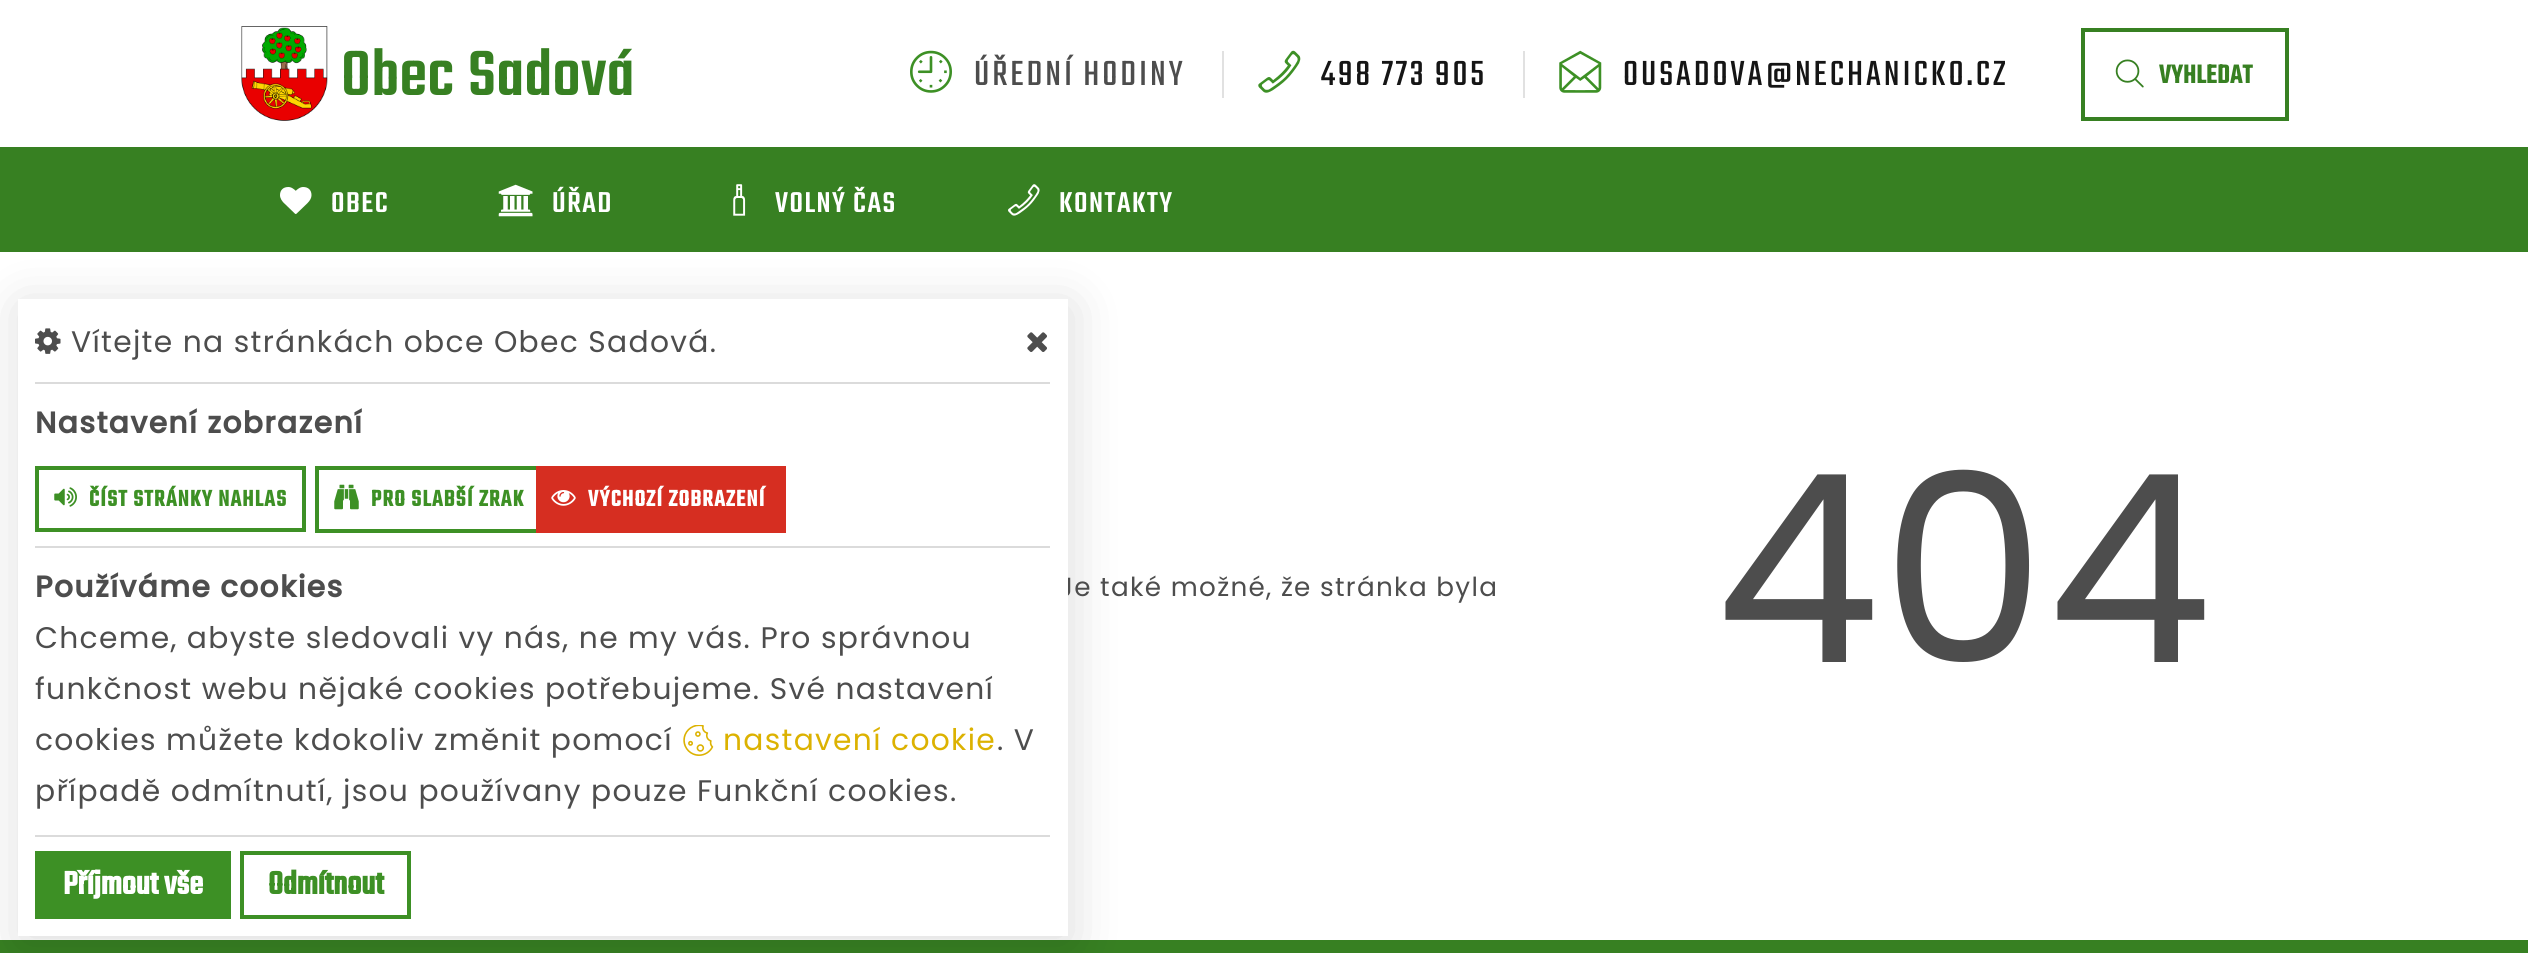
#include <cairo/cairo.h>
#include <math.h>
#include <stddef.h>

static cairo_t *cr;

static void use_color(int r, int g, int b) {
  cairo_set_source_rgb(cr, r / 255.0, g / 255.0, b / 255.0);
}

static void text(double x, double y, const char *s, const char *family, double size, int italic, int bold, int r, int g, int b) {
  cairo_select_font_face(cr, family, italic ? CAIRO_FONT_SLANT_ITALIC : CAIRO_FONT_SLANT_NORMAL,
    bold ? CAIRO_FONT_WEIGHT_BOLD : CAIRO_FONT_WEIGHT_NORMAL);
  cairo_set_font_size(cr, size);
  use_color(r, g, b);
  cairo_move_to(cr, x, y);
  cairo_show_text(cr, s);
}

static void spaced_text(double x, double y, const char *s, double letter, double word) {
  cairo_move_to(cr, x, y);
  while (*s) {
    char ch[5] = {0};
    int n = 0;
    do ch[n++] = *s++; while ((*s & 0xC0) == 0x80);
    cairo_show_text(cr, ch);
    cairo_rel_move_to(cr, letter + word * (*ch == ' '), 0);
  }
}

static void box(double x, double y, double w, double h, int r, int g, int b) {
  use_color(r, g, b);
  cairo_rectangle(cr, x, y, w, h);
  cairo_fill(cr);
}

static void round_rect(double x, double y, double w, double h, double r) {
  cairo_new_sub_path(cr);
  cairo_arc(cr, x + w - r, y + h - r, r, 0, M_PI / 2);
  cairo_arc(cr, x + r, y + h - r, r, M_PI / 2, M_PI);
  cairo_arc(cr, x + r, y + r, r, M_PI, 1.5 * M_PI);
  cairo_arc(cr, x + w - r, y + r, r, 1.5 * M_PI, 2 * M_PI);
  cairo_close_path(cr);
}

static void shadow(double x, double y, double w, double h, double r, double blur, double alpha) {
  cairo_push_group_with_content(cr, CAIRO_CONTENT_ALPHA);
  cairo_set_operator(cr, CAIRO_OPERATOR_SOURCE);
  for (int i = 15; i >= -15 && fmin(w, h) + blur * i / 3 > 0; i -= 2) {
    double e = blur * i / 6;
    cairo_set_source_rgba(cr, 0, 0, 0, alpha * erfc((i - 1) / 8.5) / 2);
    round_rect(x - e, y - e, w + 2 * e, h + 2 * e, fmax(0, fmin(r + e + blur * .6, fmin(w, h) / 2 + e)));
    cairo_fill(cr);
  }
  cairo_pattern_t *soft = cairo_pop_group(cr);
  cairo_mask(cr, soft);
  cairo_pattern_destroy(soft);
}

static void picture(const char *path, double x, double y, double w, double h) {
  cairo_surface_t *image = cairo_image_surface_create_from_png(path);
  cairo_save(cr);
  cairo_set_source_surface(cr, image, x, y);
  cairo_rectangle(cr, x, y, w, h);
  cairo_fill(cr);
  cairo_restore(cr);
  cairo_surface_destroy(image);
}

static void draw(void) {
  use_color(255, 255, 255);
  cairo_paint(cr);
  picture("img_01.png", 241, 26, 87, 95);
  picture("img_02.png", 910, 50, 42, 43);
  box(1222, 51, 2, 47, 225, 225, 225);
  picture("img_03.png", 1258, 50, 43, 43);
  box(1523, 51, 2, 47, 225, 225, 225);
  picture("img_04.png", 1559, 50, 43, 43);
  cairo_rectangle(cr, 2083, 30, 204, 89);
  use_color(55, 128, 34);
  cairo_set_line_width(cr, 4);
  cairo_stroke(cr);
  picture("img_05.png", 2115, 59, 29, 29);
  box(0, 147, 2528, 105, 55, 128, 34);
  picture("img_06.png", 280, 187, 32, 27);
  picture("img_07.png", 498, 184, 35, 33);
  picture("img_08.png", 733, 184, 13, 32);
  picture("img_09.png", 1008, 184, 32, 32);
  box(0, 940, 2528, 13, 55, 128, 34);
  use_color(0, 0, 0);
  shadow(21, 306, 1050, 637, 0, 25.5, 0.14);
  cairo_select_font_face(cr, "Teko Medium", CAIRO_FONT_SLANT_NORMAL, CAIRO_FONT_WEIGHT_NORMAL);
  cairo_set_font_size(cr, 70);
  use_color(55, 128, 34);
  spaced_text(341, 95, "Obec", 0.5, 0);
  spaced_text(468, 95, "Sadová", 0.5, 0);
  cairo_select_font_face(cr, "Teko", CAIRO_FONT_SLANT_NORMAL, CAIRO_FONT_WEIGHT_NORMAL);
  cairo_set_font_size(cr, 38.5);
  use_color(77, 77, 77);
  spaced_text(974, 85, "ÚŘEDNÍ HODINY", 2.9, 0);
  use_color(21, 21, 21);
  spaced_text(1321, 85, "498 773 905", 2.9, 0);
  spaced_text(1623, 85, "OUSADOVA@NECHANICKO.CZ", 2.9, 0);
  cairo_select_font_face(cr, "Teko", CAIRO_FONT_SLANT_NORMAL, CAIRO_FONT_WEIGHT_BOLD);
  cairo_set_font_size(cr, 28);
  use_color(55, 128, 34);
  spaced_text(2159, 83, "VYHLEDAT", 0.5, 0);
  cairo_select_font_face(cr, "Teko Medium", CAIRO_FONT_SLANT_NORMAL, CAIRO_FONT_WEIGHT_NORMAL);
  cairo_set_font_size(cr, 31.5);
  use_color(255, 255, 255);
  spaced_text(331, 212, "OBEC", 1.5, 0);
  spaced_text(552, 212, "ÚŘAD", 1.5, 0);
  spaced_text(775, 212, "VOLNÝ ČAS", 1.5, 0);
  spaced_text(1059, 212, "KONTAKTY", 1.5, 0);
  cairo_select_font_face(cr, "Poppins", CAIRO_FONT_SLANT_NORMAL, CAIRO_FONT_WEIGHT_NORMAL);
  cairo_set_font_size(cr, 26.25);
  use_color(77, 77, 77);
  spaced_text(1059, 596, "Je také možné, že stránka byla", 1.3, 0);
  box(18, 299, 1050, 637, 255, 255, 255);
  cairo_rectangle(cr, 242, 853, 167, 64);
  use_color(61, 144, 37);
  cairo_stroke(cr);
  text(268, 894, "Odmítnout", "Teko", 35, 0, 1, 61, 144, 37);
  box(35, 851, 196, 68, 61, 144, 37);
  text(63, 894, "Příjmout vše", "Teko", 35, 0, 1, 255, 255, 255);
  box(315, 529, 226, 4, 61, 144, 37);
  box(315, 466, 226, 4, 61, 144, 37);
  box(536, 466, 250, 67, 214, 46, 33);
  cairo_set_font_size(cr, 24.5);
  use_color(255, 255, 255);
  spaced_text(588, 506, "VÝCHOZÍ ZOBRAZENÍ", 1.3, 0);
  picture("img_14.png", 551, 490, 25, 16);
  use_color(61, 144, 37);
  spaced_text(371, 506, "PRO SLABŠÍ ZRAK", 1.3, 0);
  picture("img_13.png", 334, 484, 25, 26);
  box(315, 466, 4, 66, 61, 144, 37);
  cairo_rectangle(cr, 37, 468, 267, 62);
  cairo_stroke(cr);
  spaced_text(89, 506, "ČÍST STRÁNKY NAHLAS", 1.3, 0);
  picture("img_12.png", 54, 487, 23, 20);
  picture("img_11.png", 1027, 332, 20, 20);
  picture("img_15.png", 683, 725, 31, 31);
  cairo_select_font_face(cr, "Poppins", CAIRO_FONT_SLANT_NORMAL, CAIRO_FONT_WEIGHT_NORMAL);
  cairo_set_font_size(cr, 29.75);
  use_color(77, 77, 77);
  spaced_text(35, 801, "případě odmítnutí, jsou používany pouze Funkční cookies.", 1.3, 0);
  spaced_text(997, 750, ". V", 1.3, 0);
  use_color(220, 178, 1);
  spaced_text(723, 750, "nastavení cookie", 1.3, 0);
  use_color(77, 77, 77);
  spaced_text(35, 750, "cookies můžete kdokoliv změnit pomocí", 1.3, 0);
  spaced_text(35, 699, "funkčnost webu nějaké cookies potřebujeme. Své nastavení", 1.3, 0);
  spaced_text(35, 648, "Chceme, abyste sledovali vy nás, ne my vás. Pro správnou", 1.3, 0);
  cairo_select_font_face(cr, "Poppins", CAIRO_FONT_SLANT_NORMAL, CAIRO_FONT_WEIGHT_BOLD);
  spaced_text(35, 597, "Používáme cookies", 1.3, 0);
  box(35, 546, 1015, 2, 219, 219, 219);
  use_color(77, 77, 77);
  spaced_text(35, 433, "Nastavení zobrazení", 1.3, 0);
  cairo_select_font_face(cr, "Poppins", CAIRO_FONT_SLANT_NORMAL, CAIRO_FONT_WEIGHT_NORMAL);
  spaced_text(71, 352, "Vítejte na stránkách obce Obec Sadová.", 1.3, 0);
  picture("img_10.png", 35, 328, 26, 26);
  box(35, 835, 1015, 2, 219, 219, 219);
  box(35, 382, 1015, 2, 219, 219, 219);
  cairo_set_font_size(cr, 262);
  use_color(77, 77, 77);
  spaced_text(1715, 662, "404", 1.3, 0);
}

int main(void) {
  cairo_surface_t *surface = cairo_image_surface_create(CAIRO_FORMAT_RGB24, 2528, 953);
  cr = cairo_create(surface);
  cairo_font_options_t *options = cairo_font_options_create();
  cairo_font_options_set_hint_metrics(options, CAIRO_HINT_METRICS_OFF);
  cairo_font_options_set_hint_style(options, CAIRO_HINT_STYLE_NONE);
  cairo_set_font_options(cr, options);
  cairo_set_miter_limit(cr, 4);
  draw();
  cairo_surface_write_to_png(surface, "out.png");
  cairo_font_options_destroy(options);
  cairo_destroy(cr);
  cairo_surface_destroy(surface);
  return 0;
}
